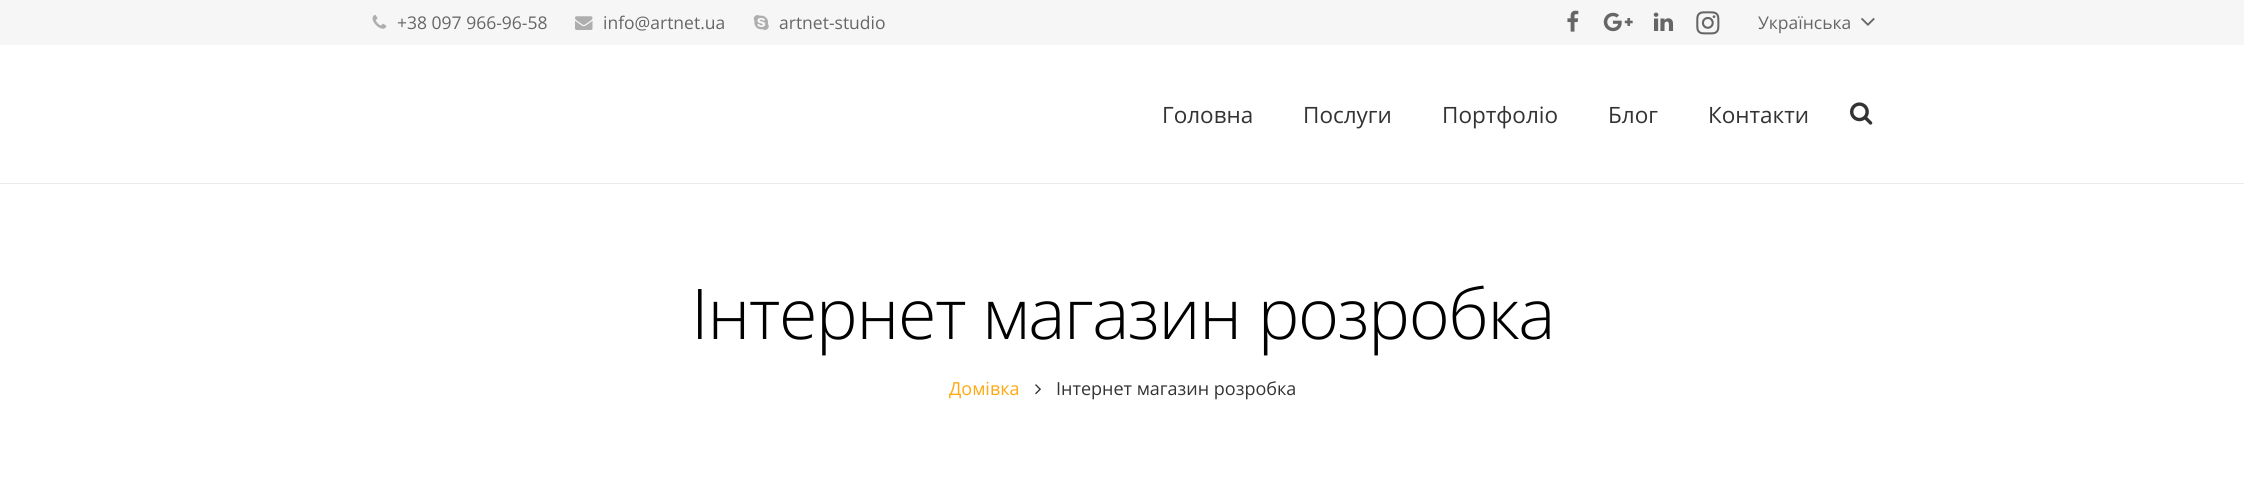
#include <cairo/cairo.h>
#include <math.h>
#include <stddef.h>

static cairo_t *cr;

static void use_color(int r, int g, int b) {
  cairo_set_source_rgb(cr, r / 255.0, g / 255.0, b / 255.0);
}

static void text(double x, double y, const char *s, const char *family, double size, int italic, int bold, int r, int g, int b) {
  cairo_select_font_face(cr, family, italic ? CAIRO_FONT_SLANT_ITALIC : CAIRO_FONT_SLANT_NORMAL,
    bold ? CAIRO_FONT_WEIGHT_BOLD : CAIRO_FONT_WEIGHT_NORMAL);
  cairo_set_font_size(cr, size);
  use_color(r, g, b);
  cairo_move_to(cr, x, y);
  cairo_show_text(cr, s);
}

static void spaced_text(double x, double y, const char *s, double letter, double word) {
  cairo_move_to(cr, x, y);
  while (*s) {
    char ch[5] = {0};
    int n = 0;
    do ch[n++] = *s++; while ((*s & 0xC0) == 0x80);
    cairo_show_text(cr, ch);
    cairo_rel_move_to(cr, letter + word * (*ch == ' '), 0);
  }
}

static void box(double x, double y, double w, double h, int r, int g, int b) {
  use_color(r, g, b);
  cairo_rectangle(cr, x, y, w, h);
  cairo_fill(cr);
}

static void picture(const char *path, double x, double y, double w, double h) {
  cairo_surface_t *image = cairo_image_surface_create_from_png(path);
  cairo_save(cr);
  cairo_set_source_surface(cr, image, x, y);
  cairo_rectangle(cr, x, y, w, h);
  cairo_fill(cr);
  cairo_restore(cr);
  cairo_surface_destroy(image);
}

static void draw(void) {
  use_color(255, 255, 255);
  cairo_paint(cr);
  box(0, 0, 2244, 45, 246, 246, 246);
  picture("img_01.png", 372, 15, 15, 14);
  picture("img_02.png", 575, 16, 18, 14);
  picture("img_03.png", 753, 15, 16, 15);
  picture("img_04.png", 1567, 10, 12, 22);
  picture("img_05.png", 1603, 12, 30, 20);
  picture("img_06.png", 1653, 12, 21, 19);
  picture("img_07.png", 1696, 11, 24, 24);
  picture("img_08.png", 1861, 18, 14, 8);
  box(0, 183, 2244, 1, 235, 235, 235);
  picture("img_09.png", 1850, 102, 23, 23);
  picture("img_10.png", 1035, 384, 6, 11);
  text(397, 29, "+38 097 966-96-58", "Open Sans", 17.5, 0, 0, 102, 102, 102);
  text(603, 29, "info@artnet.ua", "Open Sans", 17.5, 0, 0, 102, 102, 102);
  text(779, 29, "artnet-studio", "Open Sans", 17.5, 0, 0, 102, 102, 102);
  text(1758, 29, "Українська", "Open Sans", 17.5, 0, 0, 102, 102, 102);
  text(1162, 123, "Головна", "Open Sans", 22.5, 0, 0, 51, 51, 51);
  text(1303, 123, "Послуги", "Open Sans", 22.5, 0, 0, 51, 51, 51);
  text(1442, 123, "Портфоліо", "Open Sans", 22.5, 0, 0, 51, 51, 51);
  text(1608, 123, "Блог", "Open Sans", 22.5, 0, 0, 51, 51, 51);
  text(1708, 123, "Контакти", "Open Sans", 22.5, 0, 0, 51, 51, 51);
  cairo_select_font_face(cr, "Open Sans Light", CAIRO_FONT_SLANT_NORMAL, CAIRO_FONT_WEIGHT_NORMAL);
  cairo_set_font_size(cr, 70);
  use_color(0, 0, 0);
  spaced_text(691, 339, "Інтернет магазин розробка", -1.25, 0);
  text(949, 395, "Домівка", "Open Sans", 18, 0, 0, 255, 168, 17);
  text(1056, 395, "Інтернет магазин розробка", "Open Sans", 18, 0, 0, 51, 51, 51);
}

int main(void) {
  cairo_surface_t *surface = cairo_image_surface_create(CAIRO_FORMAT_RGB24, 2244, 495);
  cr = cairo_create(surface);
  cairo_font_options_t *options = cairo_font_options_create();
  cairo_font_options_set_hint_metrics(options, CAIRO_HINT_METRICS_OFF);
  cairo_font_options_set_hint_style(options, CAIRO_HINT_STYLE_NONE);
  cairo_set_font_options(cr, options);
  cairo_set_miter_limit(cr, 4);
  draw();
  cairo_surface_write_to_png(surface, "out.png");
  cairo_font_options_destroy(options);
  cairo_destroy(cr);
  cairo_surface_destroy(surface);
  return 0;
}
